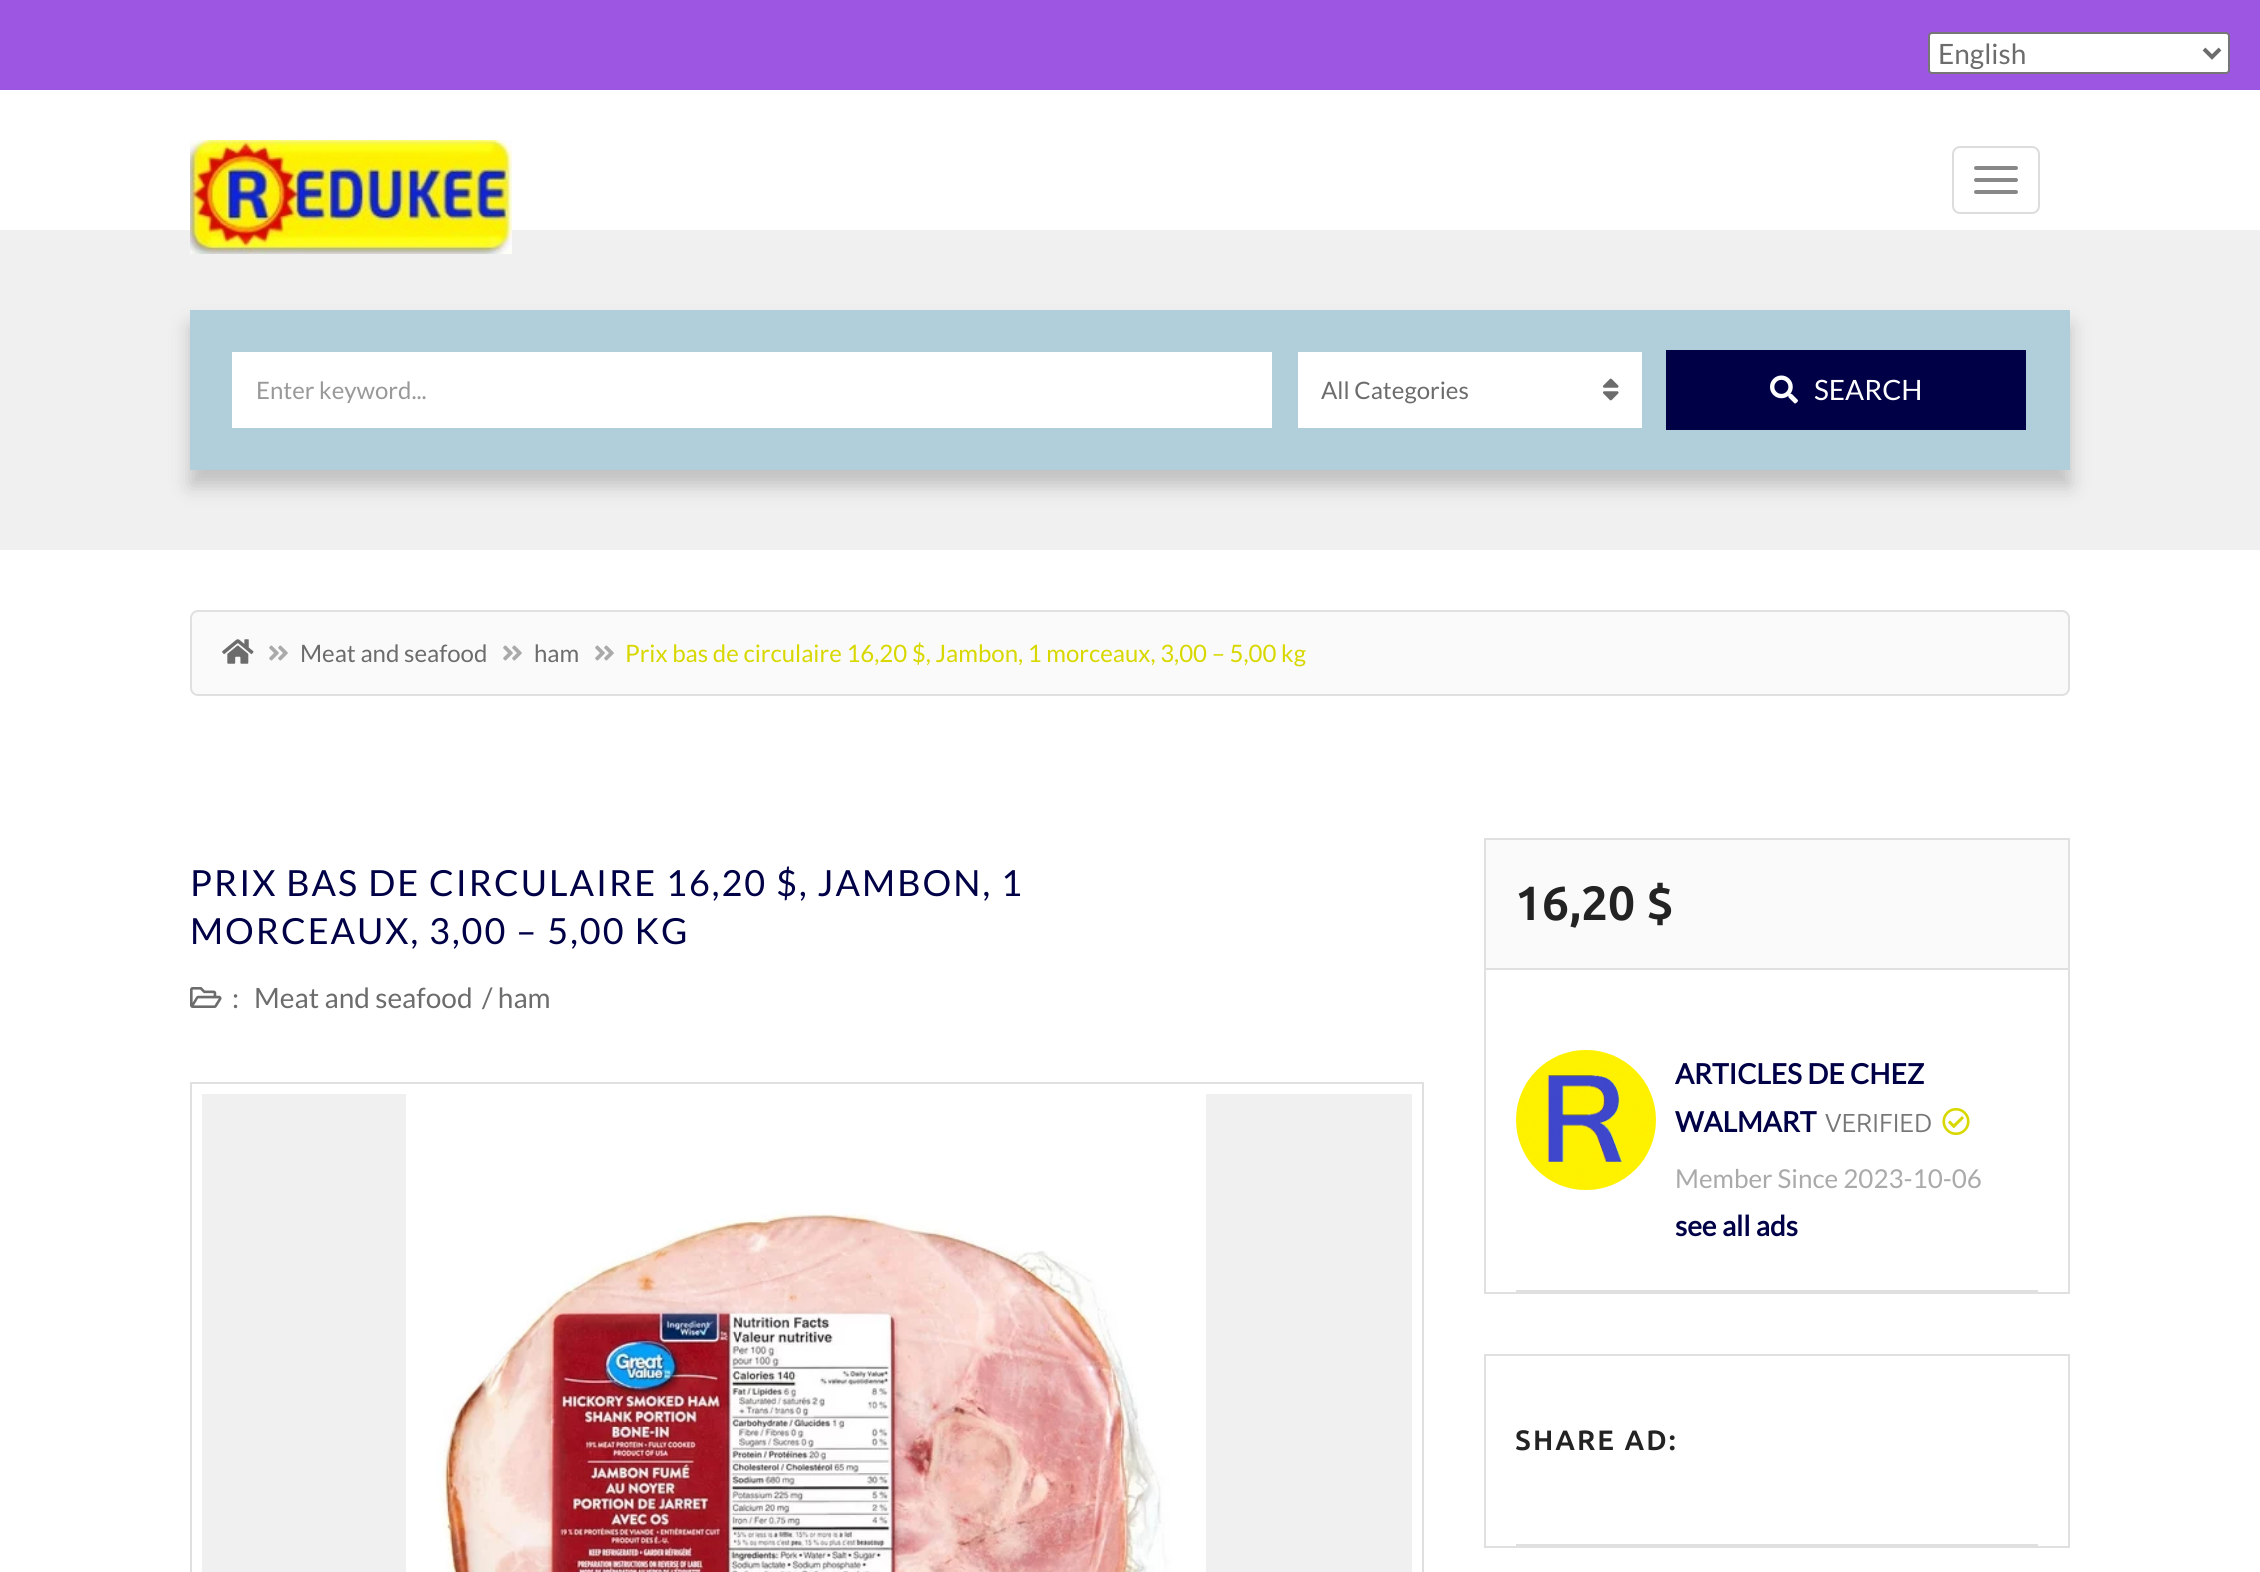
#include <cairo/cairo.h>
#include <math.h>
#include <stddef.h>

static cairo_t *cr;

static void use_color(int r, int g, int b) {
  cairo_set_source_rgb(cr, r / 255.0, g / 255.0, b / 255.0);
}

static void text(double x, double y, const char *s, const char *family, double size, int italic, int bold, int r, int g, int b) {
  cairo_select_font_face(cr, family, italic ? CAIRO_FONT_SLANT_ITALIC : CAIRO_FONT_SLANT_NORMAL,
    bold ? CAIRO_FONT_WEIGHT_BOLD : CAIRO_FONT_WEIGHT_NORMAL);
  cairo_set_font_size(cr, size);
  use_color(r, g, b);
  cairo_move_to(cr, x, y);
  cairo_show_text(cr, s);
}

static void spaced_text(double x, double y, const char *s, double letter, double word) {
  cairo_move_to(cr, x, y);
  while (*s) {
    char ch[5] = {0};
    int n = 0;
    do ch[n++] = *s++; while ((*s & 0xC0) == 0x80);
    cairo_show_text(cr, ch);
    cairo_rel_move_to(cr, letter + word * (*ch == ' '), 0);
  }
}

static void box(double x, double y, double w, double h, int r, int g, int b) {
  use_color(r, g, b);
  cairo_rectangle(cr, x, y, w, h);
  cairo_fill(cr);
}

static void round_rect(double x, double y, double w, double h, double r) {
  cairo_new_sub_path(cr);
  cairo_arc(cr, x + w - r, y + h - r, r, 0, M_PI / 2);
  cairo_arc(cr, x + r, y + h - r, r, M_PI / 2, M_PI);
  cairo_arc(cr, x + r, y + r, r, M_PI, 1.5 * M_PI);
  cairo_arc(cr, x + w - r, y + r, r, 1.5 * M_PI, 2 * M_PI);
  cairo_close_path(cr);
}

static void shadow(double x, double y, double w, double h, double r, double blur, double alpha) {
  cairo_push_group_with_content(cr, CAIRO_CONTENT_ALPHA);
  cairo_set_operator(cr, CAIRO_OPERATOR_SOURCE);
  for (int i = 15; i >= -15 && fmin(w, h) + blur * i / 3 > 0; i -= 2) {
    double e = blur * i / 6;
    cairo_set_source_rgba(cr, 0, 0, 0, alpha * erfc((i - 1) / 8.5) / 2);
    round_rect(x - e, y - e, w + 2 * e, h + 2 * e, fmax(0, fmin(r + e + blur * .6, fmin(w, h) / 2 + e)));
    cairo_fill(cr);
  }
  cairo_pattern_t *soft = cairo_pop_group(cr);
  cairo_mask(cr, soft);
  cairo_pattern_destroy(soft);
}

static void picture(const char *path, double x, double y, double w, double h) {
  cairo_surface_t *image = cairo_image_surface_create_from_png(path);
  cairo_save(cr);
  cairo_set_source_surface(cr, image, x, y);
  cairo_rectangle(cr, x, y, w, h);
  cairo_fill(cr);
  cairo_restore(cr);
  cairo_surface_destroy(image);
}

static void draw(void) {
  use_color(255, 255, 255);
  cairo_paint(cr);
  box(0, 0, 2260, 90, 156, 86, 226);
  box(0, 230, 2260, 320, 240, 240, 240);
  picture("img_01.png", 190, 140, 322, 114);
  round_rect(1953, 147, 86, 66, 7);
  use_color(221, 221, 221);
  cairo_stroke(cr);
  use_color(136, 136, 136);
  round_rect(1974, 166, 44, 4, 2);
  cairo_fill(cr);
  round_rect(1974, 178, 44, 4, 2);
  cairo_fill(cr);
  round_rect(1974, 190, 44, 4, 2);
  cairo_fill(cr);
  use_color(255, 255, 255);
  round_rect(1929, 33, 300, 40, 3);
  cairo_fill_preserve(cr);
  use_color(118, 118, 118);
  cairo_stroke(cr);
  cairo_new_path(cr);
  cairo_move_to(cr, 2204, 49);
  cairo_line_to(cr, 2212, 57);
  cairo_line_to(cr, 2220, 49);
  use_color(108, 108, 108);
  cairo_set_line_width(cr, 4);
  cairo_stroke(cr);
  use_color(0, 0, 0);
  shadow(190, 326, 1880, 160, 0, 10, 0.2);
  box(190, 310, 1880, 160, 176, 207, 218);
  box(232, 352, 1040, 76, 255, 255, 255);
  box(1298, 352, 344, 76, 255, 255, 255);
  picture("img_02.png", 1603, 378, 16, 23);
  box(1666, 350, 360, 80, 0, 0, 71);
  picture("img_03.png", 1770, 375, 28, 29);
  use_color(250, 250, 250);
  round_rect(191, 611, 1878, 84, 7);
  cairo_fill_preserve(cr);
  use_color(224, 224, 224);
  cairo_set_line_width(cr, 2);
  cairo_stroke(cr);
  picture("img_04.png", 222, 639, 32, 25);
  picture("img_05.png", 269, 645, 19, 16);
  picture("img_05.png", 503, 645, 19, 16);
  picture("img_05.png", 595, 645, 19, 16);
  picture("img_06.png", 190, 987, 32, 21);
  cairo_rectangle(cr, 191, 1083, 1232, 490);
  cairo_stroke(cr);
  box(202, 1094, 1210, 478, 240, 240, 240);
  picture("img_07.png", 406, 1094, 800, 478);
  cairo_rectangle(cr, 1485, 839, 584, 454);
  use_color(224, 224, 224);
  cairo_stroke(cr);
  box(1486, 840, 582, 128, 250, 250, 250);
  box(1486, 968, 582, 2, 224, 224, 224);
  box(1516, 1290, 522, 2, 224, 224, 224);
  picture("img_08.png", 1516, 1050, 140, 140);
  picture("img_09.png", 1942, 1108, 28, 27);
  cairo_rectangle(cr, 1485, 1355, 584, 192);
  cairo_stroke(cr);
  box(1516, 1544, 522, 2, 224, 224, 224);
  text(1938, 64, "English", "Lato", 28, 0, 0, 108, 108, 108);
  text(256, 399, "Enter keyword...", "Lato", 24, 0, 0, 153, 153, 153);
  text(1321, 399, "All Categories", "Lato", 24, 0, 0, 108, 108, 108);
  text(1814, 400, "SEARCH", "Lato", 28, 0, 0, 255, 255, 255);
  text(300, 662, "Meat and seafood", "Lato", 24, 0, 0, 108, 108, 108);
  text(534, 662, "ham", "Lato", 24, 0, 0, 108, 108, 108);
  text(625, 662, "Prix bas de circulaire 16,20 $, Jambon, 1 morceaux, 3,00 – 5,00 kg", "Lato", 24, 0, 0, 216, 216, 0);
  cairo_set_font_size(cr, 36);
  use_color(0, 0, 71);
  spaced_text(190, 896, "PRIX BAS DE CIRCULAIRE 16,20 $, JAMBON, 1", 2, 0);
  spaced_text(190, 944, "MORCEAUX, 3,00 – 5,00 KG", 2, 0);
  text(232, 1008, ":", "Lato", 28, 0, 0, 108, 108, 108);
  text(254, 1008, "Meat and seafood", "Lato", 28, 0, 0, 108, 108, 108);
  text(482, 1008, "/ ham", "Lato", 28, 0, 0, 108, 108, 108);
  text(1515, 920, "16,20 $", "Ubuntu", 48, 0, 1, 35, 35, 35);
  text(1675, 1084, "ARTICLES DE CHEZ", "Lato", 28, 0, 1, 0, 0, 71);
  text(1675, 1132, "WALMART", "Lato", 28, 0, 1, 0, 0, 71);
  text(1825, 1132, "VERIFIED", "Ubuntu", 26, 0, 0, 119, 119, 119);
  text(1675, 1188, "Member Since 2023-10-06", "Lato", 26, 0, 0, 170, 170, 170);
  text(1675, 1236, "see all ads", "Lato", 28, 0, 1, 0, 0, 71);
  cairo_select_font_face(cr, "Ubuntu", CAIRO_FONT_SLANT_NORMAL, CAIRO_FONT_WEIGHT_BOLD);
  use_color(35, 35, 35);
  spaced_text(1515, 1450, "SHARE AD:", 2, 0);
}

int main(void) {
  cairo_surface_t *surface = cairo_image_surface_create(CAIRO_FORMAT_RGB24, 2260, 1572);
  cr = cairo_create(surface);
  cairo_font_options_t *options = cairo_font_options_create();
  cairo_font_options_set_hint_metrics(options, CAIRO_HINT_METRICS_OFF);
  cairo_font_options_set_hint_style(options, CAIRO_HINT_STYLE_NONE);
  cairo_set_font_options(cr, options);
  cairo_set_miter_limit(cr, 4);
  draw();
  cairo_surface_write_to_png(surface, "out.png");
  cairo_font_options_destroy(options);
  cairo_destroy(cr);
  cairo_surface_destroy(surface);
  return 0;
}
